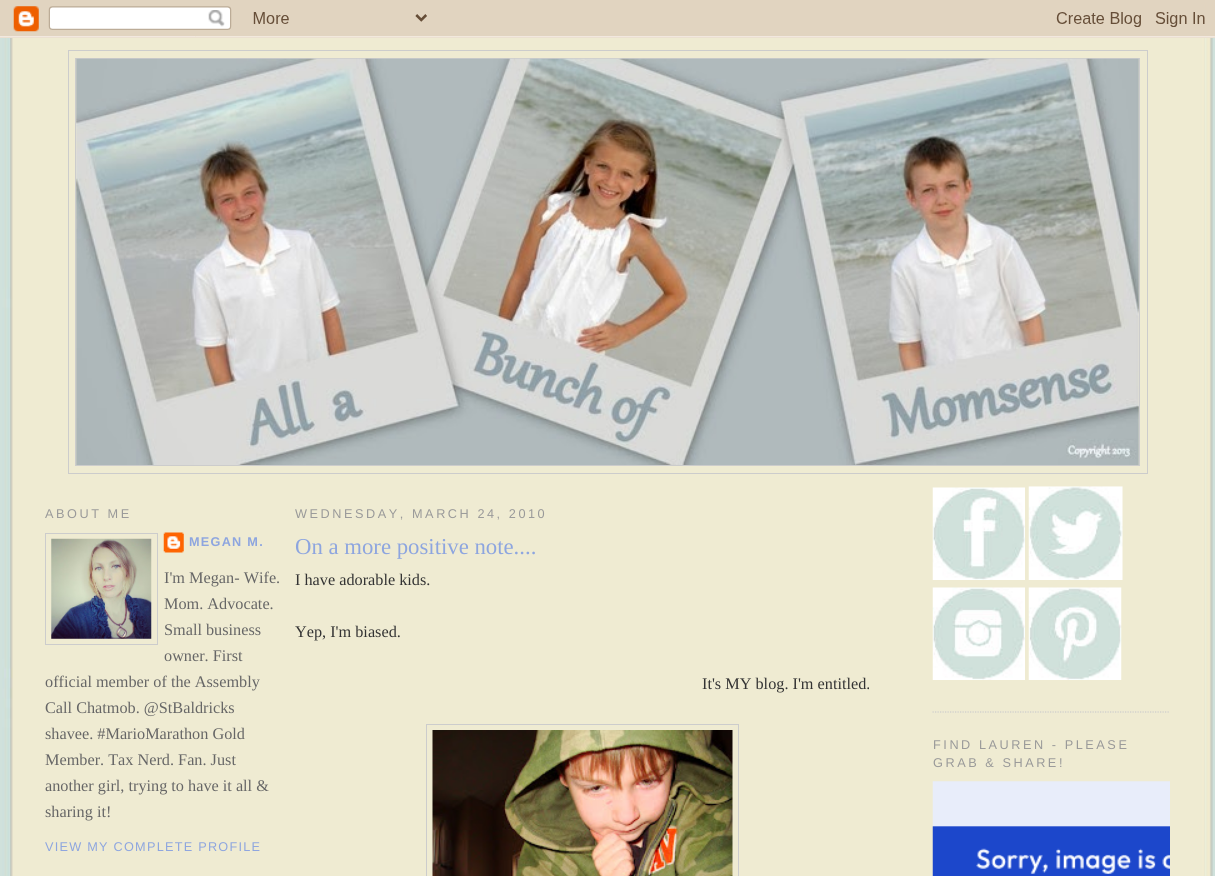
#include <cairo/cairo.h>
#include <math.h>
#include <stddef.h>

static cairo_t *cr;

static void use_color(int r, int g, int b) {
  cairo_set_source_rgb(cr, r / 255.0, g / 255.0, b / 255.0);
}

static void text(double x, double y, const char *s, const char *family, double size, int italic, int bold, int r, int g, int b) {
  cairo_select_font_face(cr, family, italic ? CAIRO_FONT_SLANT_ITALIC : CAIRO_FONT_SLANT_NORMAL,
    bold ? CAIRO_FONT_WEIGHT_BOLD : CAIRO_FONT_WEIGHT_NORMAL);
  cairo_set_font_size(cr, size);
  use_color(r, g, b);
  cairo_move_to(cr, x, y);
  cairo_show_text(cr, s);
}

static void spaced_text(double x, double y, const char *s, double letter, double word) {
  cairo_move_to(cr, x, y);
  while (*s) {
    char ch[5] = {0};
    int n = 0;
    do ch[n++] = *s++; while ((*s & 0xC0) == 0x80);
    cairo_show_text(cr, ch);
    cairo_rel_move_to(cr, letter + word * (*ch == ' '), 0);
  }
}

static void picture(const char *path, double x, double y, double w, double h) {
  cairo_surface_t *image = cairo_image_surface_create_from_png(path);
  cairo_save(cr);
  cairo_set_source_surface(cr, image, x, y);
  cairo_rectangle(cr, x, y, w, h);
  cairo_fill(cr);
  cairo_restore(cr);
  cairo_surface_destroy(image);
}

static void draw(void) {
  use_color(255, 255, 255);
  cairo_paint(cr);
  picture("img_01.png", 0, 36, 1215, 840);
  picture("img_02.png", 0, 0, 1215, 38);
  cairo_rectangle(cr, 68.5, 50.5, 1079, 423);
  use_color(204, 204, 204);
  cairo_set_line_width(cr, 1);
  cairo_stroke(cr);
  cairo_rectangle(cr, 75.5, 58.5, 1064, 407);
  cairo_stroke(cr);
  picture("img_03.png", 76, 58, 1063, 407);
  cairo_rectangle(cr, 45.5, 533.5, 112, 111);
  cairo_stroke(cr);
  picture("img_04.png", 51, 538, 101, 101);
  picture("img_05.png", 163, 532, 21, 21);
  cairo_rectangle(cr, 426.5, 724.5, 312, 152);
  cairo_stroke(cr);
  picture("img_06.png", 432, 730, 301, 146);
  cairo_new_path(cr);
  cairo_move_to(cr, 932.5, 712);
  cairo_line_to(cr, 1170, 712);
  cairo_set_line_width(cr, 1.2);
  cairo_set_dash(cr, (double[]){1.25, 1.25}, 2, 0);
  cairo_stroke(cr);
  picture("img_07.png", 932, 487, 93, 93);
  picture("img_08.png", 1028, 486, 95, 94);
  picture("img_09.png", 932, 587, 93, 93);
  picture("img_10.png", 1028, 587, 94, 93);
  picture("img_11.png", 932, 781, 238, 95);
  cairo_select_font_face(cr, "Liberation Sans", CAIRO_FONT_SLANT_NORMAL, CAIRO_FONT_WEIGHT_NORMAL);
  cairo_set_font_size(cr, 12.7);
  use_color(153, 153, 153);
  spaced_text(45, 518, "ABOUT ME", 2.55, 0);
  cairo_select_font_face(cr, "Liberation Sans", CAIRO_FONT_SLANT_NORMAL, CAIRO_FONT_WEIGHT_BOLD);
  use_color(141, 165, 223);
  spaced_text(189, 546, "MEGAN M.", 1.25, 0);
  text(164, 583, "I'm Megan- Wife.", "Liberation Serif", 16.25, 0, 0, 102, 102, 102);
  text(164, 609, "Mom. Advocate.", "Liberation Serif", 16.25, 0, 0, 102, 102, 102);
  text(164, 635, "Small business", "Liberation Serif", 16.25, 0, 0, 102, 102, 102);
  text(164, 661, "owner. First", "Liberation Serif", 16.25, 0, 0, 102, 102, 102);
  text(45, 687, "official member of the Assembly", "Liberation Serif", 16.25, 0, 0, 102, 102, 102);
  text(45, 713, "Call Chatmob. @StBaldricks", "Liberation Serif", 16.25, 0, 0, 102, 102, 102);
  text(45, 739, "shavee. #MarioMarathon Gold", "Liberation Serif", 16.25, 0, 0, 102, 102, 102);
  text(45, 765, "Member. Tax Nerd. Fan. Just", "Liberation Serif", 16.25, 0, 0, 102, 102, 102);
  text(45, 791, "another girl, trying to have it all &", "Liberation Serif", 16.25, 0, 0, 102, 102, 102);
  text(45, 817, "sharing it!", "Liberation Serif", 16.25, 0, 0, 102, 102, 102);
  cairo_select_font_face(cr, "Liberation Sans", CAIRO_FONT_SLANT_NORMAL, CAIRO_FONT_WEIGHT_NORMAL);
  cairo_set_font_size(cr, 12.7);
  use_color(141, 165, 223);
  spaced_text(45, 851, "VIEW MY COMPLETE PROFILE", 1.25, 0);
  use_color(153, 153, 153);
  spaced_text(295, 518, "WEDNESDAY, MARCH 24, 2010", 2.55, 0);
  text(295, 554, "On a more positive note....", "Liberation Serif", 22.75, 0, 0, 141, 165, 223);
  text(295, 585, "I have adorable kids.", "Liberation Serif", 16.25, 0, 0, 51, 51, 51);
  text(295, 637, "Yep, I'm biased.", "Liberation Serif", 16.25, 0, 0, 51, 51, 51);
  text(702, 689, "It's MY blog. I'm entitled.", "Liberation Serif", 16.25, 0, 0, 51, 51, 51);
  cairo_select_font_face(cr, "Liberation Sans", CAIRO_FONT_SLANT_NORMAL, CAIRO_FONT_WEIGHT_NORMAL);
  cairo_set_font_size(cr, 12.7);
  use_color(153, 153, 153);
  spaced_text(933, 749, "FIND LAUREN - PLEASE", 2.55, 0);
  spaced_text(933, 767, "GRAB & SHARE!", 2.55, 0);
}

int main(void) {
  cairo_surface_t *surface = cairo_image_surface_create(CAIRO_FORMAT_RGB24, 1215, 876);
  cr = cairo_create(surface);
  cairo_font_options_t *options = cairo_font_options_create();
  cairo_font_options_set_hint_metrics(options, CAIRO_HINT_METRICS_OFF);
  cairo_font_options_set_hint_style(options, CAIRO_HINT_STYLE_NONE);
  cairo_set_font_options(cr, options);
  cairo_set_miter_limit(cr, 4);
  draw();
  cairo_surface_write_to_png(surface, "out.png");
  cairo_font_options_destroy(options);
  cairo_destroy(cr);
  cairo_surface_destroy(surface);
  return 0;
}
